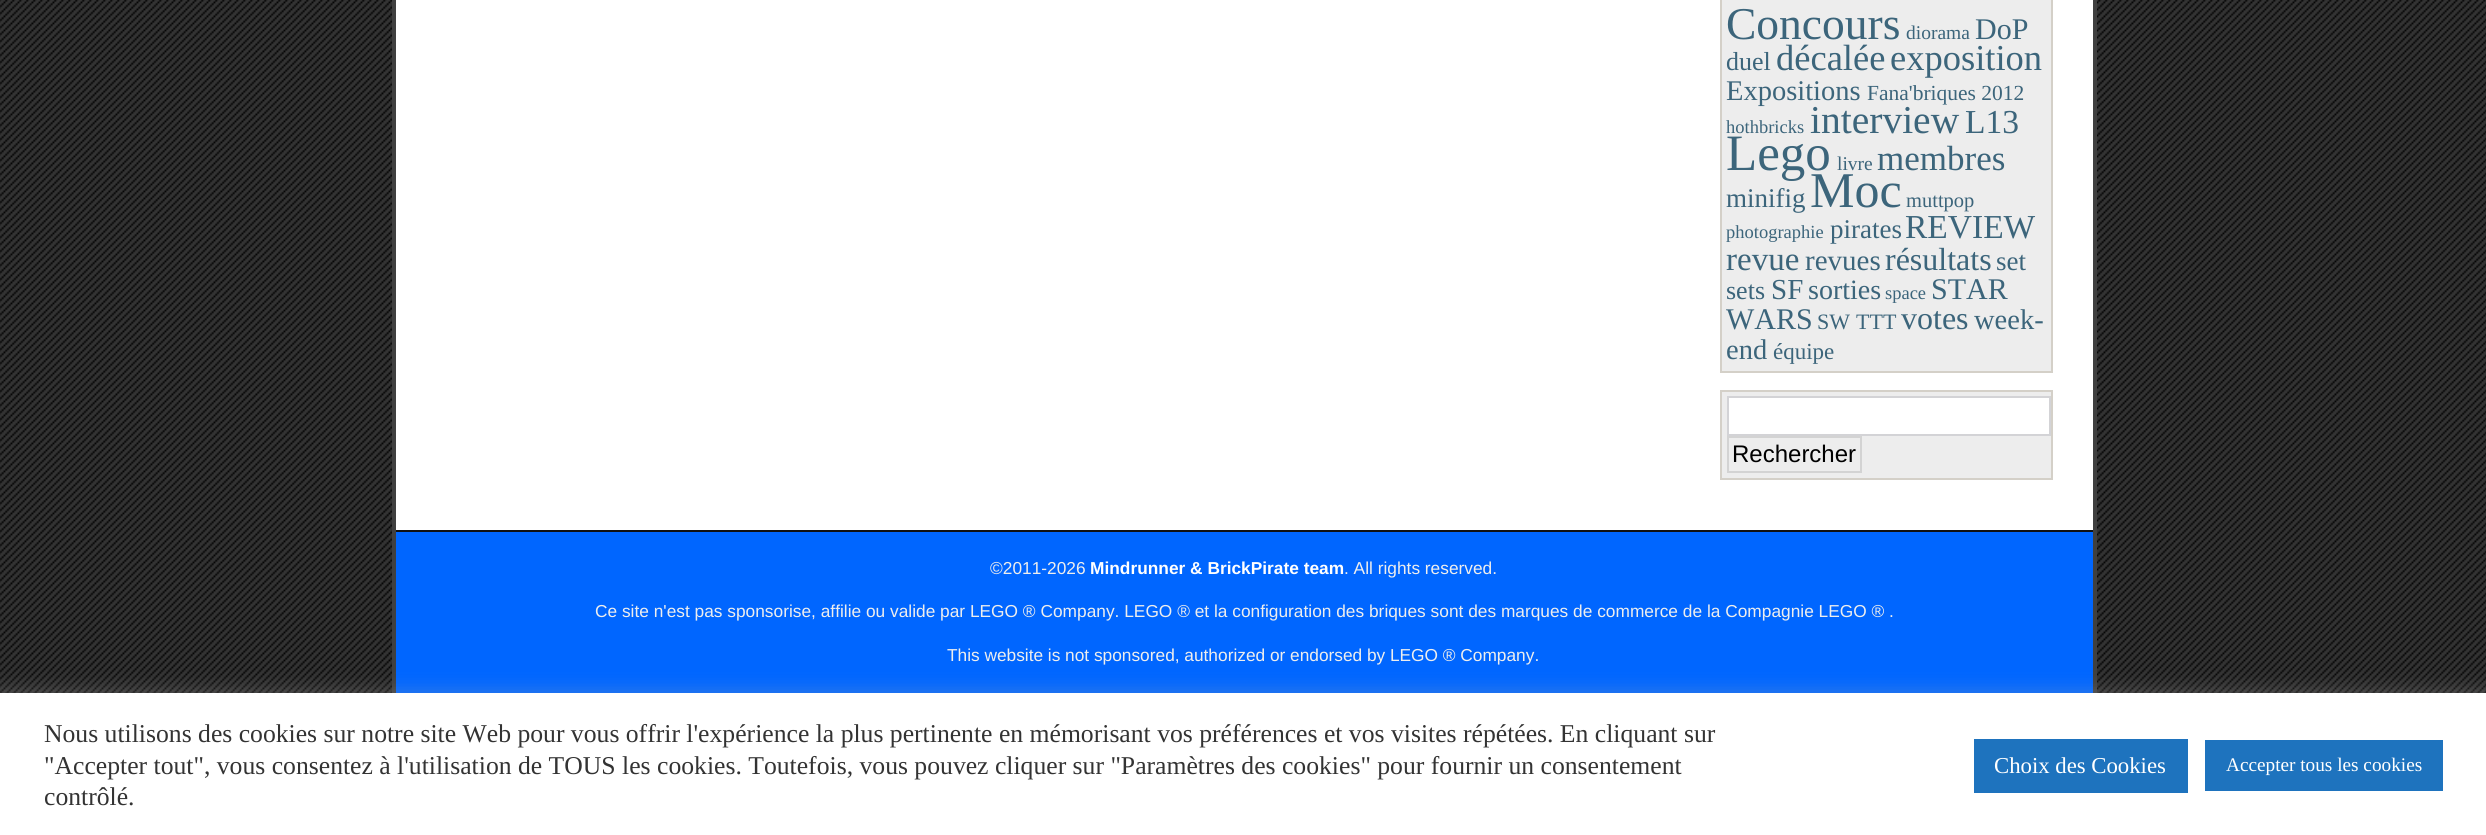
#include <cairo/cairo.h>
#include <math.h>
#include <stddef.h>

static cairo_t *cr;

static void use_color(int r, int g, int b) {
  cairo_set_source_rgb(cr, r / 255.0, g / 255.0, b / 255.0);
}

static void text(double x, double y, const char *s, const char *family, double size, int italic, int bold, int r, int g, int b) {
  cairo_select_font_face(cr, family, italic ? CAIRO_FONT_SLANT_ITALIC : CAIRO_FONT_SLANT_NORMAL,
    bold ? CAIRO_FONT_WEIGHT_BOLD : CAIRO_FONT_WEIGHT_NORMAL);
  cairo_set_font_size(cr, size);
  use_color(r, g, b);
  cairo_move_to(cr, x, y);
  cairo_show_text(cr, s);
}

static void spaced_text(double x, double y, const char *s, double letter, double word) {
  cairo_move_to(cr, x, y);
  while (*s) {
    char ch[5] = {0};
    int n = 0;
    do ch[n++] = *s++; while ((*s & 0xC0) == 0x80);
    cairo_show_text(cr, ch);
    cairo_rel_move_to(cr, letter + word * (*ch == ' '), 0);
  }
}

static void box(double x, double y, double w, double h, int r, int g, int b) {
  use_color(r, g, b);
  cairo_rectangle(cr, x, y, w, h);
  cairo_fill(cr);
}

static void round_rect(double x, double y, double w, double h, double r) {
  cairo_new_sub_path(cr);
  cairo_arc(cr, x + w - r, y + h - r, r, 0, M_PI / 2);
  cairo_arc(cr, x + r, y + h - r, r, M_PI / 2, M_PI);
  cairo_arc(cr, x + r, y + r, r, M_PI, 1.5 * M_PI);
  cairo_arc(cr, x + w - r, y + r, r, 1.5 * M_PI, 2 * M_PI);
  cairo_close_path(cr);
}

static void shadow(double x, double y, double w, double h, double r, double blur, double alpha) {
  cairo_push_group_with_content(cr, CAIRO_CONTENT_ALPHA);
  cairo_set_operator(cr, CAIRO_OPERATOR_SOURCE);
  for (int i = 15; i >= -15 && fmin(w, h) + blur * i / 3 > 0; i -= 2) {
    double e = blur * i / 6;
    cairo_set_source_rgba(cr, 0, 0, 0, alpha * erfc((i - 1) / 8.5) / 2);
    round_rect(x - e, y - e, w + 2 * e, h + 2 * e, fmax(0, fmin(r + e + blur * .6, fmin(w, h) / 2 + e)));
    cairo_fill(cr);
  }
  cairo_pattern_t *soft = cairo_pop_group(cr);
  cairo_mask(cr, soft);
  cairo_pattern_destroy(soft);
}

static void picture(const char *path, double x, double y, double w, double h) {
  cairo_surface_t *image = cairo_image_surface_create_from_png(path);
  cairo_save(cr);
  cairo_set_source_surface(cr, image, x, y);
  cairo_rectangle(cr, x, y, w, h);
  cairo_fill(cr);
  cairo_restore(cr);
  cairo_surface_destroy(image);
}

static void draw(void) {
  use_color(255, 255, 255);
  cairo_paint(cr);
  picture("img_01.png", 0, 0, 2486, 693);
  box(396, 0, 1697, 530, 255, 255, 255);
  box(2093, 0, 4, 693, 64, 64, 64);
  box(392, 0, 4, 693, 64, 64, 64);
  use_color(237, 237, 237);
  cairo_rectangle(cr, 1721, -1, 331, 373);
  cairo_fill_preserve(cr);
  use_color(212, 208, 200);
  cairo_stroke(cr);
  use_color(237, 237, 237);
  cairo_rectangle(cr, 1721, 391, 331, 88);
  cairo_fill_preserve(cr);
  use_color(212, 208, 200);
  cairo_stroke(cr);
  use_color(255, 255, 255);
  cairo_rectangle(cr, 1728, 397, 322, 38);
  cairo_fill_preserve(cr);
  use_color(211, 211, 214);
  cairo_stroke(cr);
  cairo_rectangle(cr, 1728, 437, 133, 35);
  use_color(211, 211, 211);
  cairo_stroke(cr);
  box(396, 532, 1697, 161, 0, 102, 255);
  box(396, 530, 1697, 2, 17, 17, 17);
  use_color(172, 171, 171);
  shadow(0, 691, 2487, 144, 0, 9, 0.3);
  box(0, 693, 2486, 142, 255, 255, 255);
  box(1974, 739, 214, 54, 30, 115, 190);
  box(2205, 740, 238, 51, 30, 115, 190);
  text(1726, 39, "Concours", "Liberation Serif", 45.5, 0, 0, 60, 101, 123);
  text(1906, 39, "diorama", "Liberation Serif", 19.5, 0, 0, 60, 101, 123);
  text(1975, 39, "DoP", "Liberation Serif", 30, 0, 0, 60, 101, 123);
  text(1726, 70, "duel", "Liberation Serif", 26, 0, 0, 60, 101, 123);
  text(1776, 70, "décalée", "Liberation Serif", 36.5, 0, 0, 60, 101, 123);
  text(1890, 70, "exposition", "Liberation Serif", 36.5, 0, 0, 60, 101, 123);
  text(1726, 100, "Expositions", "Liberation Serif", 28.5, 0, 0, 60, 101, 123);
  text(1867, 100, "Fana'briques 2012", "Liberation Serif", 21.5, 0, 0, 60, 101, 123);
  text(1726, 133, "hothbricks", "Liberation Serif", 18.5, 0, 0, 60, 101, 123);
  text(1810, 133, "interview", "Liberation Serif", 39.5, 0, 0, 60, 101, 123);
  text(1965, 133, "L13", "Liberation Serif", 33.5, 0, 0, 60, 101, 123);
  text(1726, 170, "Lego", "Liberation Serif", 51, 0, 0, 60, 101, 123);
  text(1837, 170, "livre", "Liberation Serif", 19.5, 0, 0, 60, 101, 123);
  text(1877, 170, "membres", "Liberation Serif", 35, 0, 0, 60, 101, 123);
  text(1726, 207, "minifig", "Liberation Serif", 27, 0, 0, 60, 101, 123);
  text(1810, 207, "Moc", "Liberation Serif", 50, 0, 0, 60, 101, 123);
  text(1906, 207, "muttpop", "Liberation Serif", 20.5, 0, 0, 60, 101, 123);
  text(1726, 238, "photographie", "Liberation Serif", 18.5, 0, 0, 60, 101, 123);
  text(1830, 238, "pirates", "Liberation Serif", 27, 0, 0, 60, 101, 123);
  text(1905, 238, "REVIEW", "Liberation Serif", 33.5, 0, 0, 60, 101, 123);
  text(1726, 270, "revue", "Liberation Serif", 33, 0, 0, 60, 101, 123);
  text(1805, 270, "revues", "Liberation Serif", 29, 0, 0, 60, 101, 123);
  text(1885, 270, "résultats", "Liberation Serif", 32, 0, 0, 60, 101, 123);
  text(1996, 270, "set", "Liberation Serif", 27, 0, 0, 60, 101, 123);
  text(1726, 299, "sets", "Liberation Serif", 26, 0, 0, 60, 101, 123);
  text(1771, 299, "SF", "Liberation Serif", 29, 0, 0, 60, 101, 123);
  text(1808, 299, "sorties", "Liberation Serif", 28, 0, 0, 60, 101, 123);
  text(1885, 299, "space", "Liberation Serif", 18.5, 0, 0, 60, 101, 123);
  text(1931, 299, "STAR", "Liberation Serif", 30, 0, 0, 60, 101, 123);
  text(1726, 329, "WARS", "Liberation Serif", 30, 0, 0, 60, 101, 123);
  text(1817, 329, "SW", "Liberation Serif", 22, 0, 0, 60, 101, 123);
  text(1856, 329, "TTT", "Liberation Serif", 22, 0, 0, 60, 101, 123);
  text(1901, 329, "votes", "Liberation Serif", 32, 0, 0, 60, 101, 123);
  text(1974, 329, "week-", "Liberation Serif", 28.5, 0, 0, 60, 101, 123);
  text(1726, 359, "end", "Liberation Serif", 28.5, 0, 0, 60, 101, 123);
  text(1773, 359, "équipe", "Liberation Serif", 23, 0, 0, 60, 101, 123);
  text(1732, 462, "Rechercher", "Liberation Sans", 24, 0, 0, 0, 0, 0);
  text(990, 574, "©2011-2026", "Liberation Sans", 17.32, 0, 0, 238, 238, 238);
  text(1090, 574, "Mindrunner & BrickPirate team", "Liberation Sans", 17.32, 0, 1, 255, 255, 255);
  text(1344, 574, ". All rights reserved.", "Liberation Sans", 17.32, 0, 0, 238, 238, 238);
  text(595, 617, "Ce site n'est pas sponsorise, affilie ou valide par LEGO ® Company. LEGO ® et la configuration des briques sont des marques de commerce de la Compagnie LEGO ® .", "Liberation Sans", 17.32, 0, 0, 238, 238, 238);
  spaced_text(947, 661, "This website is not sponsored, authorized or endorsed by LEGO ® Company.", 0, -0.1);
  text(44, 742, "Nous utilisons des cookies sur notre site Web pour vous offrir l'expérience la plus pertinente en mémorisant vos préférences et vos visites répétées. En cliquant sur", "Liberation Serif", 25.67, 0, 0, 51, 51, 51);
  text(44, 774, "\"Accepter tout\", vous consentez à l'utilisation de TOUS les cookies. Toutefois, vous pouvez cliquer sur \"Paramètres des cookies\" pour fournir un consentement", "Liberation Serif", 25.67, 0, 0, 51, 51, 51);
  text(44, 805, "contrôlé.", "Liberation Serif", 25.67, 0, 0, 51, 51, 51);
  text(1994, 773, "Choix des Cookies", "Liberation Serif", 22.75, 0, 0, 255, 255, 255);
  text(2226, 771, "Accepter tous les cookies", "Liberation Serif", 19.25, 0, 0, 255, 255, 255);
}

int main(void) {
  cairo_surface_t *surface = cairo_image_surface_create(CAIRO_FORMAT_RGB24, 2486, 835);
  cr = cairo_create(surface);
  cairo_font_options_t *options = cairo_font_options_create();
  cairo_font_options_set_hint_metrics(options, CAIRO_HINT_METRICS_OFF);
  cairo_font_options_set_hint_style(options, CAIRO_HINT_STYLE_NONE);
  cairo_set_font_options(cr, options);
  cairo_set_miter_limit(cr, 4);
  draw();
  cairo_surface_write_to_png(surface, "out.png");
  cairo_font_options_destroy(options);
  cairo_destroy(cr);
  cairo_surface_destroy(surface);
  return 0;
}
